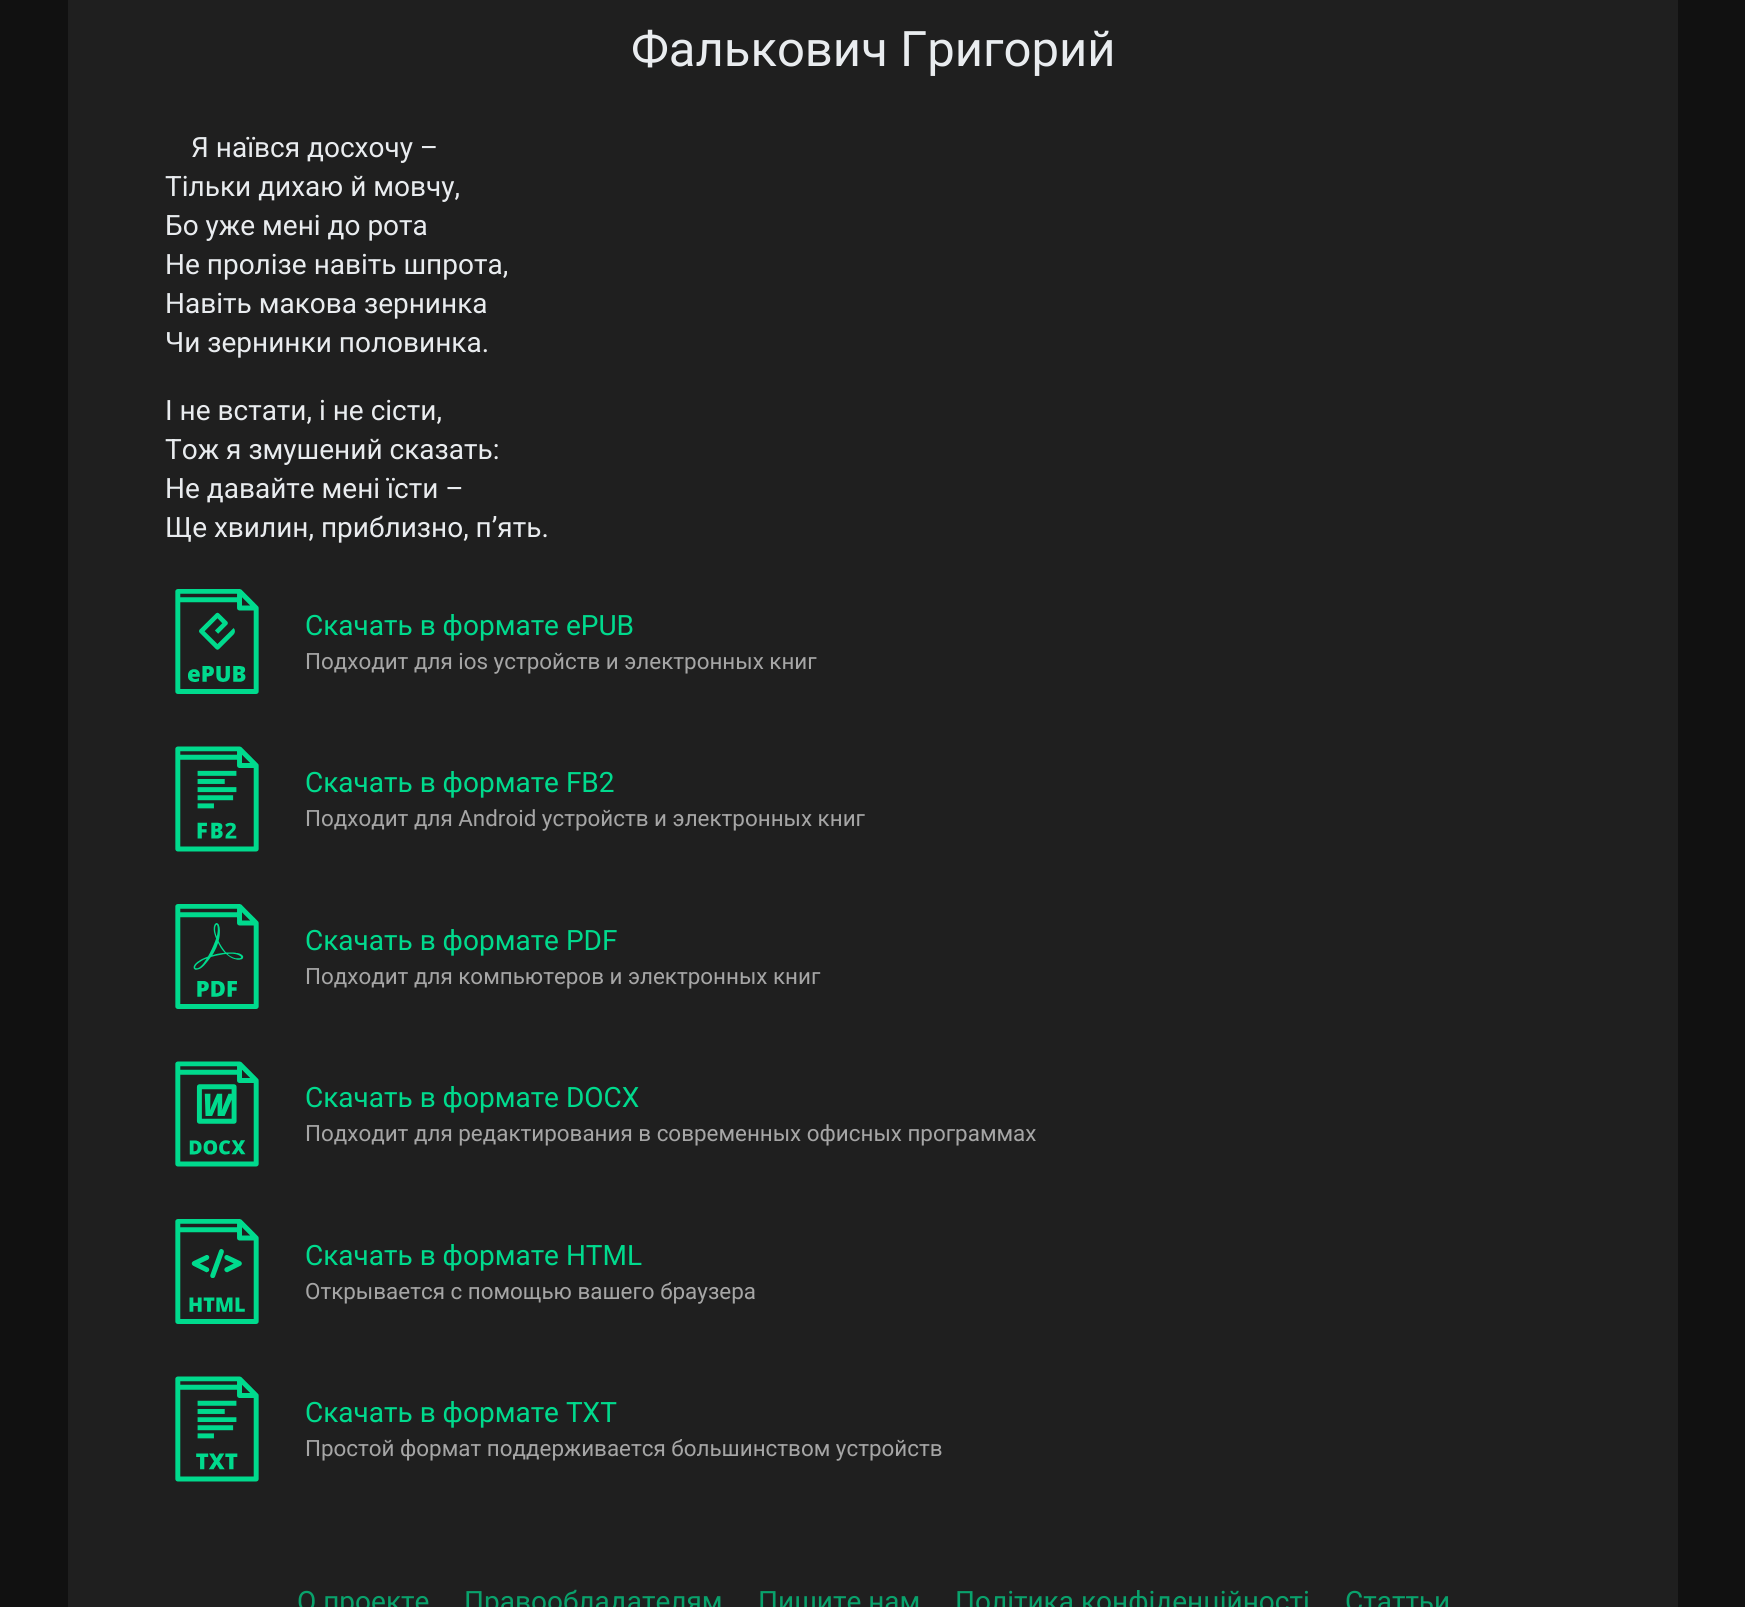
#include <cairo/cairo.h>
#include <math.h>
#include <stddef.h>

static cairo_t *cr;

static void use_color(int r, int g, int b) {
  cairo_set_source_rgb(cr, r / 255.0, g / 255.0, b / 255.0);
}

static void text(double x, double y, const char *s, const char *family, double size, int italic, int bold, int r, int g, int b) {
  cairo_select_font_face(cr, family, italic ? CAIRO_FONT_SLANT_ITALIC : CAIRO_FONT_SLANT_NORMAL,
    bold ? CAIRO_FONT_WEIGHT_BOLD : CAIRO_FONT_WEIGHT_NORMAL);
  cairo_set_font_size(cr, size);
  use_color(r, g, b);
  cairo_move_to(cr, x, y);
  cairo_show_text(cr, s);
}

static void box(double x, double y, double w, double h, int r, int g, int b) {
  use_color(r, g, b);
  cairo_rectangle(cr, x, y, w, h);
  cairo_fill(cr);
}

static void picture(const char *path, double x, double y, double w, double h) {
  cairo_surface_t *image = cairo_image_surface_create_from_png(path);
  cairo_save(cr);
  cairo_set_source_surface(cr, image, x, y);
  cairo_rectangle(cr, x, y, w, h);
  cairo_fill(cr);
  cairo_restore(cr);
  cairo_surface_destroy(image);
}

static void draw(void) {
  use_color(17, 17, 17);
  cairo_paint(cr);
  box(68, 0, 1610, 1607, 31, 31, 31);
  picture("img_01.png", 175, 589, 84, 105);
  picture("img_02.png", 175, 746, 84, 106);
  picture("img_03.png", 175, 904, 84, 105);
  picture("img_04.png", 175, 1061, 84, 106);
  picture("img_05.png", 175, 1219, 84, 105);
  picture("img_06.png", 175, 1376, 84, 106);
  text(631, 66, "Фалькович Григорий", "Roboto", 49, 0, 0, 233, 236, 239);
  text(191, 157, "Я наївся досхочу –", "Roboto", 28, 0, 0, 233, 236, 239);
  text(165, 196, "Тільки дихаю й мовчу,", "Roboto", 28, 0, 0, 233, 236, 239);
  text(165, 235, "Бо уже мені до рота", "Roboto", 28, 0, 0, 233, 236, 239);
  text(165, 274, "Не пролізе навіть шпрота,", "Roboto", 28, 0, 0, 233, 236, 239);
  text(165, 313, "Навіть макова зернинка", "Roboto", 28, 0, 0, 233, 236, 239);
  text(165, 352, "Чи зернинки половинка.", "Roboto", 28, 0, 0, 233, 236, 239);
  text(165, 420, "І не встати, і не сісти,", "Roboto", 28, 0, 0, 233, 236, 239);
  text(165, 459, "Тож я змушений сказать:", "Roboto", 28, 0, 0, 233, 236, 239);
  text(165, 498, "Не давайте мені їсти –", "Roboto", 28, 0, 0, 233, 236, 239);
  text(165, 537, "Ще хвилин, приблизно, п’ять.", "Roboto", 28, 0, 0, 233, 236, 239);
  text(305, 635, "Скачать в формате ePUB", "Roboto", 28, 0, 0, 0, 218, 141);
  text(305, 669, "Подходит для ios устройств и электронных книг", "Roboto", 22.4, 0, 0, 166, 166, 166);
  text(305, 792, "Скачать в формате FB2", "Roboto", 28, 0, 0, 0, 218, 141);
  text(305, 826, "Подходит для Android устройств и электронных книг", "Roboto", 22.4, 0, 0, 166, 166, 166);
  text(305, 950, "Скачать в формате PDF", "Roboto", 28, 0, 0, 0, 218, 141);
  text(305, 984, "Подходит для компьютеров и электронных книг", "Roboto", 22.4, 0, 0, 166, 166, 166);
  text(305, 1107, "Скачать в формате DOCX", "Roboto", 28, 0, 0, 0, 218, 141);
  text(305, 1141, "Подходит для редактирования в современных офисных программах", "Roboto", 22.4, 0, 0, 166, 166, 166);
  text(305, 1265, "Скачать в формате HTML", "Roboto", 28, 0, 0, 0, 218, 141);
  text(305, 1299, "Открывается с помощью вашего браузера", "Roboto", 22.4, 0, 0, 166, 166, 166);
  text(305, 1422, "Скачать в формате TXT", "Roboto", 28, 0, 0, 0, 218, 141);
  text(305, 1456, "Простой формат поддерживается большинством устройств", "Roboto", 22.4, 0, 0, 166, 166, 166);
  text(297, 1611, "О проекте", "Roboto", 28, 0, 0, 9, 162, 108);
  text(464, 1611, "Прaвooблaдателям", "Roboto", 28, 0, 0, 9, 162, 108);
  text(758, 1611, "Пишите нам", "Roboto", 28, 0, 0, 9, 162, 108);
  text(955, 1611, "Політика конфіденційності", "Roboto", 28, 0, 0, 9, 162, 108);
  text(1345, 1611, "Статтьи", "Roboto", 28, 0, 0, 9, 162, 108);
}

int main(void) {
  cairo_surface_t *surface = cairo_image_surface_create(CAIRO_FORMAT_RGB24, 1745, 1607);
  cr = cairo_create(surface);
  cairo_font_options_t *options = cairo_font_options_create();
  cairo_font_options_set_hint_metrics(options, CAIRO_HINT_METRICS_OFF);
  cairo_font_options_set_hint_style(options, CAIRO_HINT_STYLE_NONE);
  cairo_set_font_options(cr, options);
  cairo_set_miter_limit(cr, 4);
  draw();
  cairo_surface_write_to_png(surface, "out.png");
  cairo_font_options_destroy(options);
  cairo_destroy(cr);
  cairo_surface_destroy(surface);
  return 0;
}
